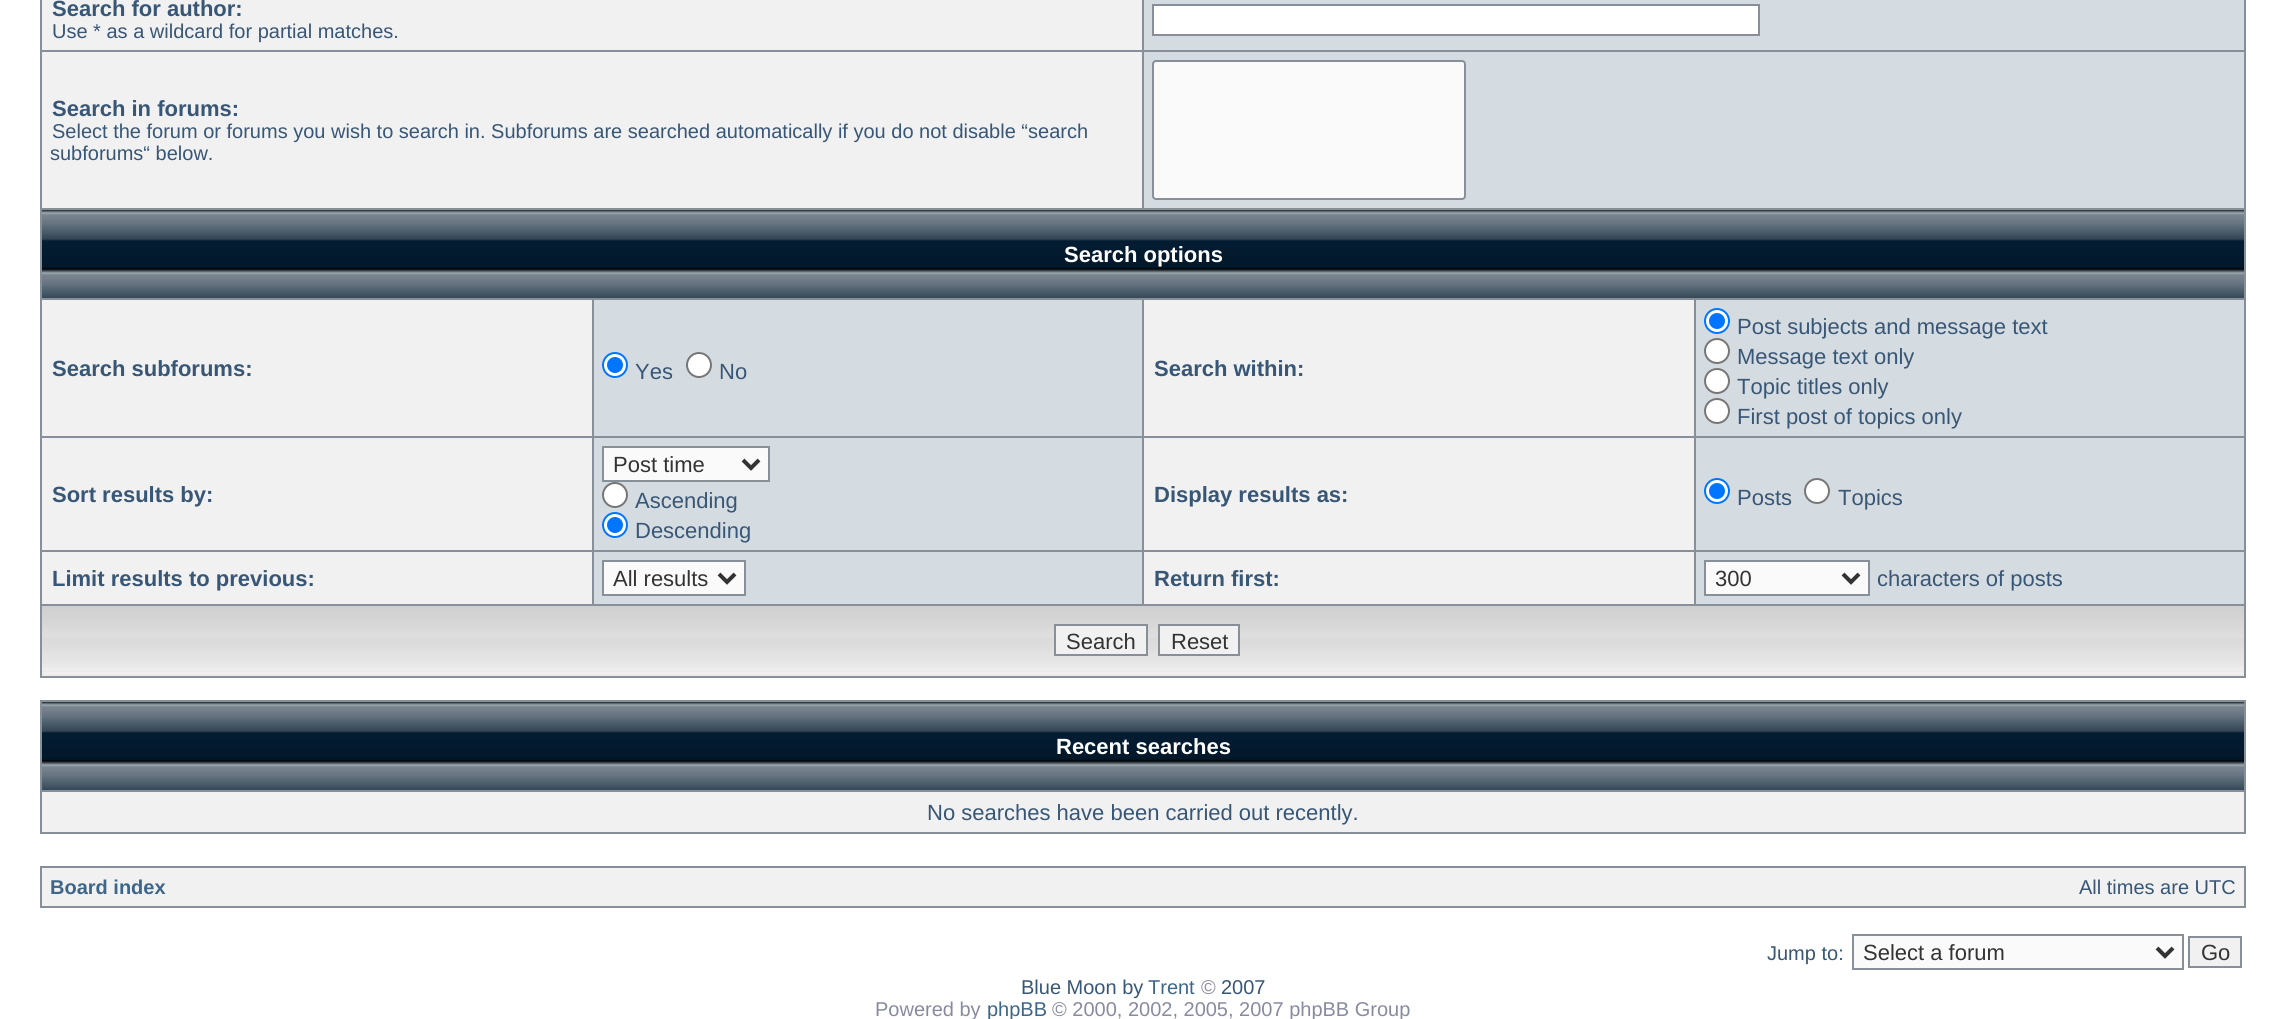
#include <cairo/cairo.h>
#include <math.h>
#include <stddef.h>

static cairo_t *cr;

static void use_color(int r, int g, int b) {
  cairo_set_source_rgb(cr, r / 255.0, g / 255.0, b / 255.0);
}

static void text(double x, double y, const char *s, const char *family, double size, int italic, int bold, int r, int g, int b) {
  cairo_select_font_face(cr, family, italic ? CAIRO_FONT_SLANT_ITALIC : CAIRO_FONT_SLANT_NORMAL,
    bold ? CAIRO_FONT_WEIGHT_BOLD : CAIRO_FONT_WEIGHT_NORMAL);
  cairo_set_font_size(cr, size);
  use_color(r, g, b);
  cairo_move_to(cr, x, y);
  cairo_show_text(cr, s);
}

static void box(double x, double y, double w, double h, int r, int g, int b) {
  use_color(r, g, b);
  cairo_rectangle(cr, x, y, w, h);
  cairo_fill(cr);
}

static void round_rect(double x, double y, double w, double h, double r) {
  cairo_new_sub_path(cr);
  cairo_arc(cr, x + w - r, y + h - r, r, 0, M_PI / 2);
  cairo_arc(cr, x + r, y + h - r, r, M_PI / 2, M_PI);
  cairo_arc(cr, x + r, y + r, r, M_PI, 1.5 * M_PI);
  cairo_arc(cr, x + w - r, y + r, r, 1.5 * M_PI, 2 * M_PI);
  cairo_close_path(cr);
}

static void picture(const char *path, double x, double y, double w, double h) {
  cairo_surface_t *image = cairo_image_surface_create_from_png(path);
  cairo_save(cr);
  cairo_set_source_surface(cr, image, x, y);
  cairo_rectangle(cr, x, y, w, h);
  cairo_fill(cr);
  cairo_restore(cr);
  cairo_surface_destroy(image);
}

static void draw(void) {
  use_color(255, 255, 255);
  cairo_paint(cr);
  box(40, 0, 2206, 678, 135, 144, 152);
  box(42, 0, 1100, 50, 241, 241, 241);
  box(1144, 0, 1100, 50, 213, 220, 225);
  use_color(255, 255, 255);
  cairo_rectangle(cr, 1153, 5, 606, 30);
  cairo_fill_preserve(cr);
  use_color(135, 144, 152);
  cairo_stroke(cr);
  box(42, 52, 1100, 156, 241, 241, 241);
  box(1144, 52, 1100, 156, 213, 220, 225);
  use_color(250, 250, 250);
  round_rect(1153, 61, 312, 138, 3);
  cairo_fill_preserve(cr);
  use_color(135, 144, 152);
  cairo_stroke(cr);
  picture("img_01.png", 42, 210, 2202, 88);
  box(42, 300, 550, 136, 241, 241, 241);
  box(594, 300, 548, 136, 213, 220, 225);
  use_color(255, 255, 255);
  cairo_arc(cr, 615, 365, 12, 0, 2 * M_PI);
  cairo_fill_preserve(cr);
  use_color(0, 117, 255);
  cairo_stroke(cr);
  cairo_arc(cr, 615, 365, 8, 0, 2 * M_PI);
  cairo_fill(cr);
  use_color(255, 255, 255);
  cairo_arc(cr, 699, 365, 12, 0, 2 * M_PI);
  cairo_fill_preserve(cr);
  use_color(118, 118, 118);
  cairo_stroke(cr);
  box(1144, 300, 550, 136, 241, 241, 241);
  box(1696, 300, 548, 136, 213, 220, 225);
  use_color(255, 255, 255);
  cairo_arc(cr, 1717, 321, 12, 0, 2 * M_PI);
  cairo_fill_preserve(cr);
  use_color(0, 117, 255);
  cairo_stroke(cr);
  cairo_arc(cr, 1717, 321, 8, 0, 2 * M_PI);
  cairo_fill(cr);
  use_color(255, 255, 255);
  cairo_arc(cr, 1717, 351, 12, 0, 2 * M_PI);
  cairo_fill_preserve(cr);
  use_color(118, 118, 118);
  cairo_stroke(cr);
  use_color(255, 255, 255);
  cairo_arc(cr, 1717, 381, 12, 0, 2 * M_PI);
  cairo_fill_preserve(cr);
  use_color(118, 118, 118);
  cairo_stroke(cr);
  use_color(255, 255, 255);
  cairo_arc(cr, 1717, 411, 12, 0, 2 * M_PI);
  cairo_fill_preserve(cr);
  use_color(118, 118, 118);
  cairo_stroke(cr);
  box(42, 438, 550, 112, 241, 241, 241);
  box(594, 438, 548, 112, 213, 220, 225);
  use_color(250, 250, 250);
  cairo_rectangle(cr, 603, 447, 166, 34);
  cairo_fill_preserve(cr);
  use_color(135, 144, 152);
  cairo_stroke(cr);
  cairo_new_path(cr);
  cairo_move_to(cr, 743, 460);
  cairo_line_to(cr, 751, 468);
  cairo_line_to(cr, 759, 460);
  use_color(51, 51, 51);
  cairo_set_line_width(cr, 4);
  cairo_stroke(cr);
  use_color(255, 255, 255);
  cairo_arc(cr, 615, 495, 12, 0, 2 * M_PI);
  cairo_fill_preserve(cr);
  use_color(118, 118, 118);
  cairo_set_line_width(cr, 2);
  cairo_stroke(cr);
  use_color(255, 255, 255);
  cairo_arc(cr, 615, 525, 12, 0, 2 * M_PI);
  cairo_fill_preserve(cr);
  use_color(0, 117, 255);
  cairo_stroke(cr);
  cairo_arc(cr, 615, 525, 8, 0, 2 * M_PI);
  cairo_fill(cr);
  box(1144, 438, 550, 112, 241, 241, 241);
  box(1696, 438, 548, 112, 213, 220, 225);
  use_color(255, 255, 255);
  cairo_arc(cr, 1717, 491, 12, 0, 2 * M_PI);
  cairo_fill_preserve(cr);
  use_color(0, 117, 255);
  cairo_stroke(cr);
  cairo_arc(cr, 1717, 491, 8, 0, 2 * M_PI);
  cairo_fill(cr);
  use_color(255, 255, 255);
  cairo_arc(cr, 1817, 491, 12, 0, 2 * M_PI);
  cairo_fill_preserve(cr);
  use_color(118, 118, 118);
  cairo_stroke(cr);
  box(42, 552, 550, 52, 241, 241, 241);
  box(594, 552, 548, 52, 213, 220, 225);
  use_color(250, 250, 250);
  cairo_rectangle(cr, 603, 561, 142, 34);
  cairo_fill_preserve(cr);
  use_color(135, 144, 152);
  cairo_stroke(cr);
  cairo_new_path(cr);
  cairo_move_to(cr, 719, 574);
  cairo_line_to(cr, 727, 582);
  cairo_line_to(cr, 735, 574);
  use_color(51, 51, 51);
  cairo_set_line_width(cr, 4);
  cairo_stroke(cr);
  box(1144, 552, 550, 52, 241, 241, 241);
  box(1696, 552, 548, 52, 213, 220, 225);
  use_color(250, 250, 250);
  cairo_rectangle(cr, 1705, 561, 164, 34);
  cairo_fill_preserve(cr);
  use_color(135, 144, 152);
  cairo_set_line_width(cr, 2);
  cairo_stroke(cr);
  cairo_new_path(cr);
  cairo_move_to(cr, 1843, 574);
  cairo_line_to(cr, 1851, 582);
  cairo_line_to(cr, 1859, 574);
  use_color(51, 51, 51);
  cairo_set_line_width(cr, 4);
  cairo_stroke(cr);
  picture("img_02.png", 42, 606, 2202, 70);
  use_color(241, 241, 241);
  cairo_rectangle(cr, 1055, 625, 92, 30);
  cairo_fill_preserve(cr);
  use_color(135, 144, 152);
  cairo_set_line_width(cr, 2);
  cairo_stroke(cr);
  use_color(241, 241, 241);
  cairo_rectangle(cr, 1159, 625, 80, 30);
  cairo_fill_preserve(cr);
  use_color(135, 144, 152);
  cairo_stroke(cr);
  box(40, 700, 2206, 134, 135, 144, 152);
  picture("img_01.png", 42, 702, 2202, 88);
  box(42, 792, 2202, 40, 241, 241, 241);
  box(40, 866, 2206, 42, 135, 144, 152);
  box(42, 868, 2202, 38, 241, 241, 241);
  use_color(250, 250, 250);
  cairo_rectangle(cr, 1853, 935, 330, 34);
  cairo_fill_preserve(cr);
  use_color(135, 144, 152);
  cairo_stroke(cr);
  cairo_new_path(cr);
  cairo_move_to(cr, 2157, 948);
  cairo_line_to(cr, 2165, 956);
  cairo_line_to(cr, 2173, 948);
  use_color(51, 51, 51);
  cairo_set_line_width(cr, 4);
  cairo_stroke(cr);
  use_color(241, 241, 241);
  cairo_rectangle(cr, 2189, 937, 52, 30);
  cairo_fill_preserve(cr);
  use_color(135, 144, 152);
  cairo_set_line_width(cr, 2);
  cairo_stroke(cr);
  text(52, 16, "Search for author:", "Liberation Sans", 22, 0, 1, 56, 86, 117);
  text(52, 38, "Use * as a wildcard for partial matches.", "Liberation Sans", 20, 0, 0, 56, 86, 117);
  text(52, 116, "Search in forums:", "Liberation Sans", 22, 0, 1, 56, 86, 117);
  text(52, 138, "Select the forum or forums you wish to search in. Subforums are searched automatically if you do not disable “search", "Liberation Sans", 20, 0, 0, 56, 86, 117);
  text(50, 160, "subforums“ below.", "Liberation Sans", 20, 0, 0, 56, 86, 117);
  text(1064, 262, "Search options", "Liberation Sans", 22, 0, 1, 255, 255, 255);
  text(52, 376, "Search subforums:", "Liberation Sans", 22, 0, 1, 56, 86, 117);
  text(635, 379, "Yes", "Liberation Sans", 22, 0, 0, 56, 86, 117);
  text(719, 379, "No", "Liberation Sans", 22, 0, 0, 56, 86, 117);
  text(1154, 376, "Search within:", "Liberation Sans", 22, 0, 1, 56, 86, 117);
  text(1737, 334, "Post subjects and message text", "Liberation Sans", 22, 0, 0, 56, 86, 117);
  text(1737, 364, "Message text only", "Liberation Sans", 22, 0, 0, 56, 86, 117);
  text(1737, 394, "Topic titles only", "Liberation Sans", 22, 0, 0, 56, 86, 117);
  text(1737, 424, "First post of topics only", "Liberation Sans", 22, 0, 0, 56, 86, 117);
  text(52, 502, "Sort results by:", "Liberation Sans", 22, 0, 1, 56, 86, 117);
  text(613, 472, "Post time", "Liberation Sans", 22, 0, 0, 51, 51, 51);
  text(635, 508, "Ascending", "Liberation Sans", 22, 0, 0, 56, 86, 117);
  text(635, 538, "Descending", "Liberation Sans", 22, 0, 0, 56, 86, 117);
  text(1154, 502, "Display results as:", "Liberation Sans", 22, 0, 1, 56, 86, 117);
  text(1737, 505, "Posts", "Liberation Sans", 22, 0, 0, 56, 86, 117);
  text(1838, 505, "Topics", "Liberation Sans", 22, 0, 0, 56, 86, 117);
  text(52, 586, "Limit results to previous:", "Liberation Sans", 22, 0, 1, 56, 86, 117);
  text(613, 586, "All results", "Liberation Sans", 22, 0, 0, 51, 51, 51);
  text(1154, 586, "Return first:", "Liberation Sans", 22, 0, 1, 56, 86, 117);
  text(1715, 586, "300", "Liberation Sans", 22, 0, 0, 51, 51, 51);
  text(1877, 586, "characters of posts", "Liberation Sans", 22, 0, 0, 56, 86, 117);
  text(1066, 649, "Search", "Liberation Sans", 22, 0, 0, 51, 51, 51);
  text(1171, 649, "Reset", "Liberation Sans", 22, 0, 0, 51, 51, 51);
  text(1056, 754, "Recent searches", "Liberation Sans", 22, 0, 1, 255, 255, 255);
  text(927, 820, "No searches have been carried out recently.", "Liberation Sans", 22, 0, 0, 56, 86, 117);
  text(50, 894, "Board index", "Liberation Sans", 20, 0, 1, 62, 102, 137);
  text(2079, 894, "All times are UTC", "Liberation Sans", 20, 0, 0, 56, 86, 117);
  text(1767, 960, "Jump to:", "Liberation Sans", 20, 0, 0, 56, 86, 117);
  text(1863, 960, "Select a forum", "Liberation Sans", 22, 0, 0, 51, 51, 51);
  text(2201, 960, "Go", "Liberation Sans", 22, 0, 0, 51, 51, 51);
  text(1021, 994, "Blue Moon by", "Liberation Sans", 20, 0, 0, 56, 86, 117);
  text(1148, 994, "Trent", "Liberation Sans", 20, 0, 0, 62, 102, 137);
  text(1201, 994, "©", "Liberation Sans", 20, 0, 0, 136, 138, 160);
  text(1221, 994, "2007", "Liberation Sans", 20, 0, 0, 56, 86, 117);
  text(875, 1016, "Powered by", "Liberation Sans", 20, 0, 0, 136, 138, 160);
  text(987, 1016, "phpBB", "Liberation Sans", 20, 0, 0, 62, 102, 137);
  text(1052, 1016, "© 2000, 2002, 2005, 2007 phpBB Group", "Liberation Sans", 20, 0, 0, 136, 138, 160);
}

int main(void) {
  cairo_surface_t *surface = cairo_image_surface_create(CAIRO_FORMAT_RGB24, 2285, 1019);
  cr = cairo_create(surface);
  cairo_font_options_t *options = cairo_font_options_create();
  cairo_font_options_set_hint_metrics(options, CAIRO_HINT_METRICS_OFF);
  cairo_font_options_set_hint_style(options, CAIRO_HINT_STYLE_NONE);
  cairo_set_font_options(cr, options);
  cairo_set_miter_limit(cr, 4);
  draw();
  cairo_surface_write_to_png(surface, "out.png");
  cairo_font_options_destroy(options);
  cairo_destroy(cr);
  cairo_surface_destroy(surface);
  return 0;
}
